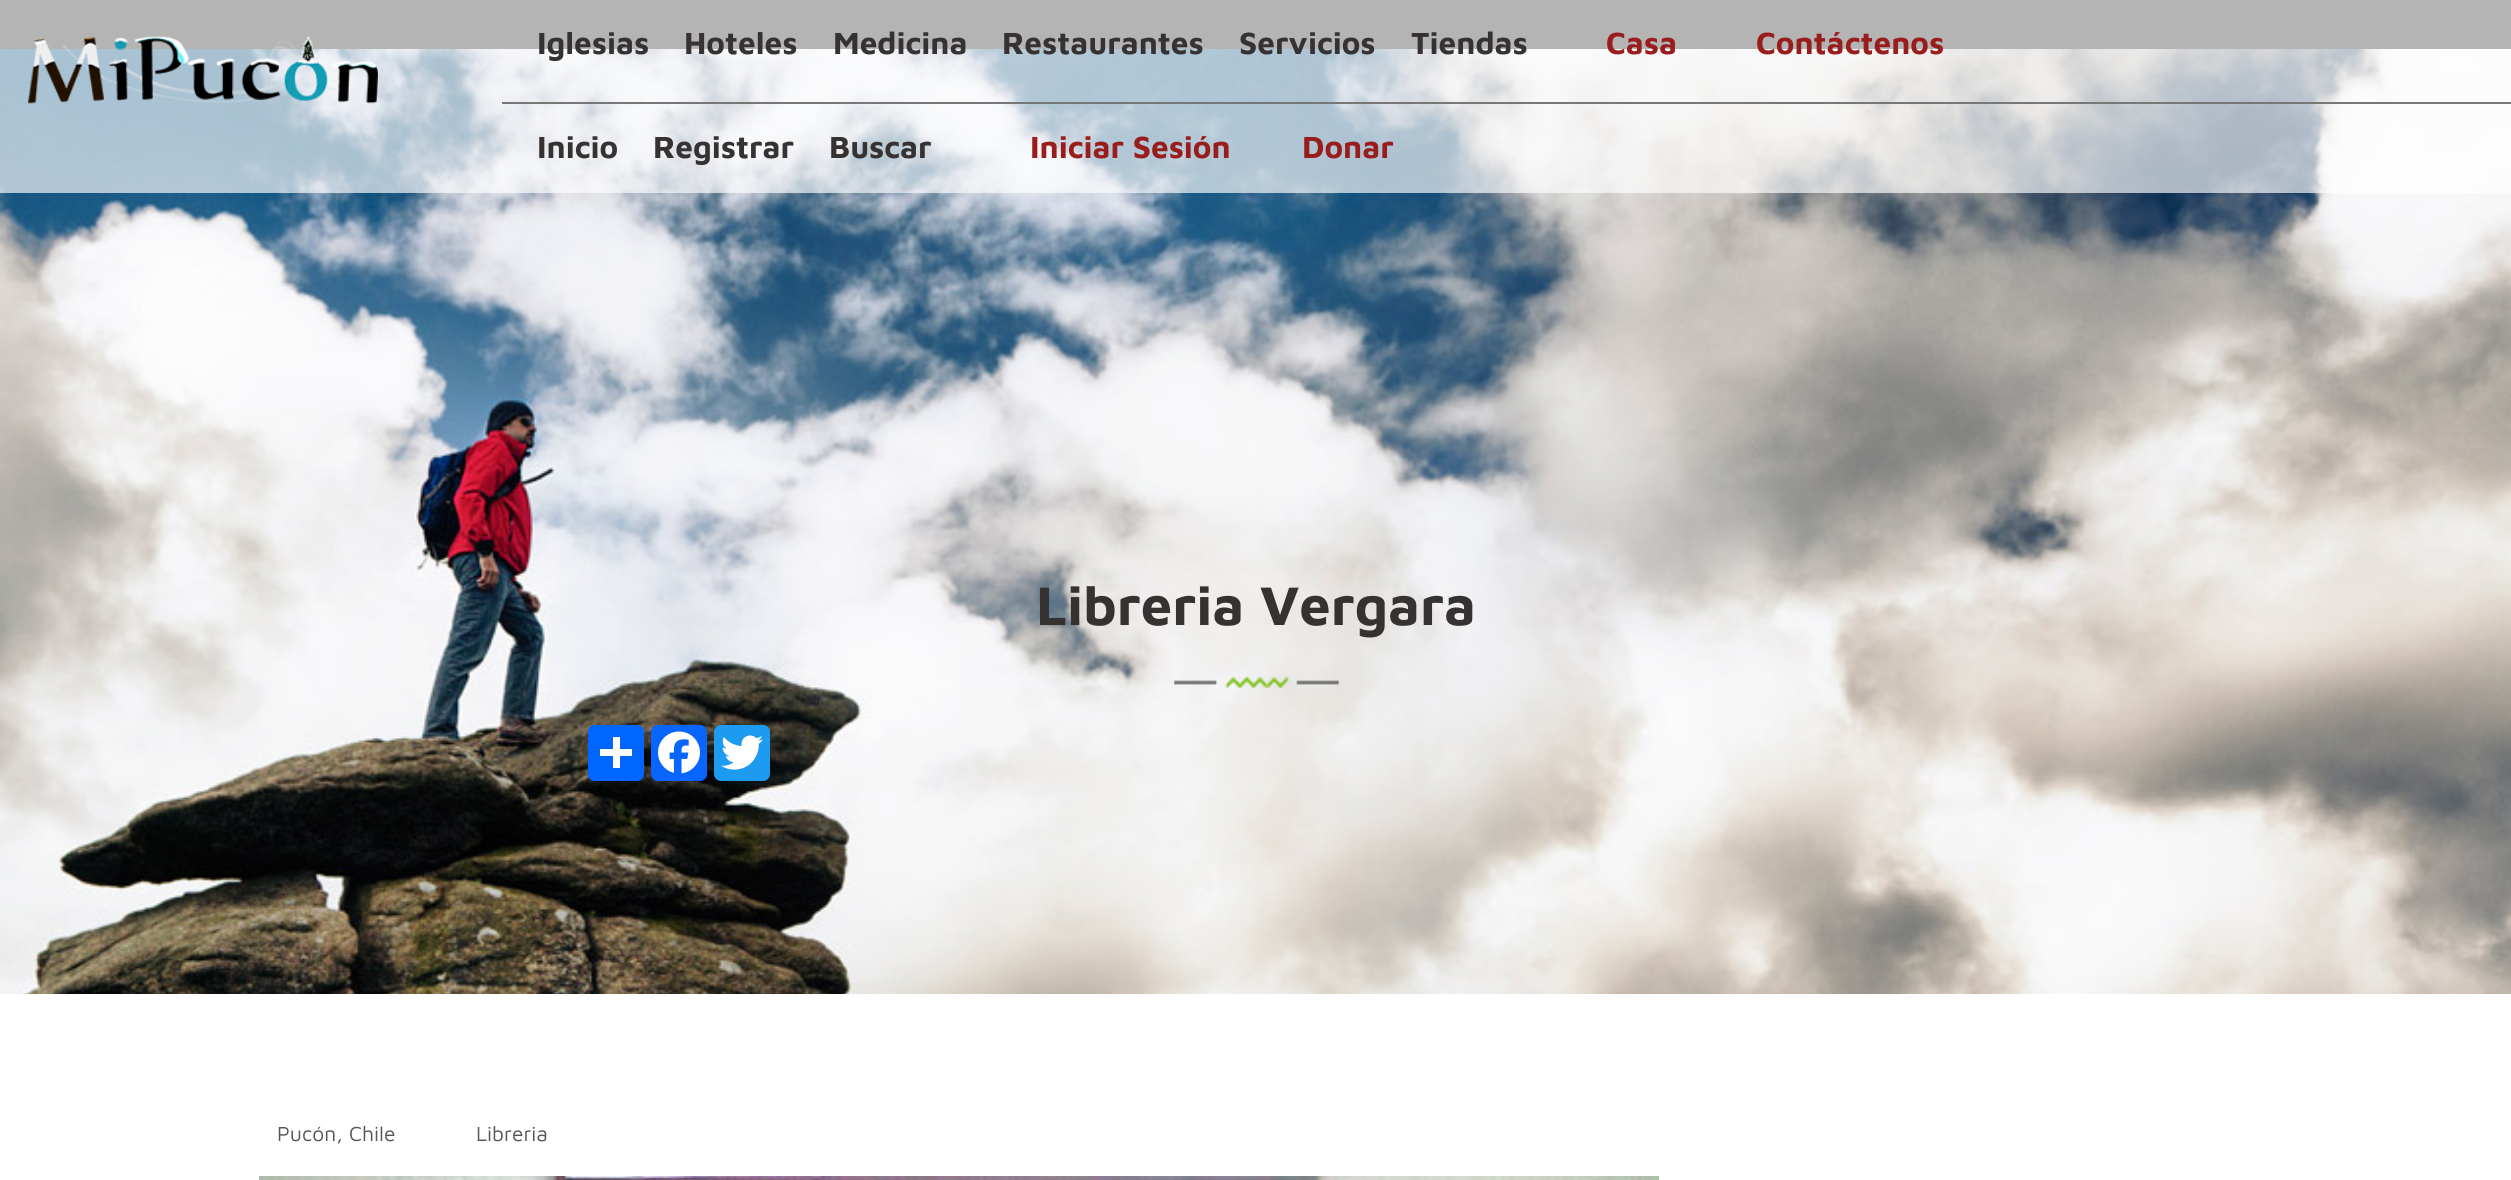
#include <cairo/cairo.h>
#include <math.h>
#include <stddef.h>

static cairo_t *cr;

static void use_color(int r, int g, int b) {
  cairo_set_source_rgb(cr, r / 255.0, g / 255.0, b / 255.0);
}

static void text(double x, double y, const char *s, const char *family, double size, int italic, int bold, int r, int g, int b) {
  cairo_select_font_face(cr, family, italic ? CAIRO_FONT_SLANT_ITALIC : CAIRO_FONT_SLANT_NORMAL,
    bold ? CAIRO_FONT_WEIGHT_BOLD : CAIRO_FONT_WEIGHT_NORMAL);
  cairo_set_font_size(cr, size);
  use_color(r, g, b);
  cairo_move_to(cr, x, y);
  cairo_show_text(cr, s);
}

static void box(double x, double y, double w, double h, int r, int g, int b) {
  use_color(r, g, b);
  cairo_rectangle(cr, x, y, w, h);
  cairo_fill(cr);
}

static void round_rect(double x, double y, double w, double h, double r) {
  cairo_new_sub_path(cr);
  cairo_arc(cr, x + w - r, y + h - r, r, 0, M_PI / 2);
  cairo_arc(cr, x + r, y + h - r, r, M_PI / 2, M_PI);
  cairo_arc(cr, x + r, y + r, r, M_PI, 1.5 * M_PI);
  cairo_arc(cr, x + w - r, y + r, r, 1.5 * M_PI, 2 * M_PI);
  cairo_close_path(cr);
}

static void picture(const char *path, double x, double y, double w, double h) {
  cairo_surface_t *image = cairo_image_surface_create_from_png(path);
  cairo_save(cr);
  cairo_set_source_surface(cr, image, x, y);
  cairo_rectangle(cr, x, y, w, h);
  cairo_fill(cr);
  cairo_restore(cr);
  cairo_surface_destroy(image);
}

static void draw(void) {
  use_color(34, 34, 34);
  cairo_paint(cr);
  box(0, 994, 2511, 186, 255, 255, 255);
  picture("img_02.png", 0, 49, 2511, 945);
  cairo_set_source_rgba(cr, 1, 1, 1, 0.66);
  cairo_rectangle(cr, 0, 0, 2511, 193);
  cairo_fill(cr);
  picture("img_01.png", 28, 36, 350, 68);
  box(502, 102, 2009, 2, 119, 119, 119);
  picture("img_03.png", 1174, 677, 165, 11);
  use_color(1, 102, 255);
  round_rect(588, 725, 56, 56, 7);
  cairo_fill(cr);
  box(613, 737, 7, 31, 255, 255, 255);
  box(600, 749, 32, 7, 255, 255, 255);
  use_color(8, 102, 255);
  round_rect(651, 725, 56, 56, 7);
  cairo_fill(cr);
  picture("img_04.png", 658, 731, 42, 43);
  use_color(29, 155, 240);
  round_rect(714, 725, 56, 56, 7);
  cairo_fill(cr);
  picture("img_05.png", 721, 735, 42, 35);
  picture("img_06.png", 259, 1176, 1400, 4);
  text(537, 54, "Iglesias", "Maven Pro", 31.5, 0, 1, 54, 50, 50);
  text(684, 54, "Hoteles", "Maven Pro", 31.5, 0, 1, 54, 50, 50);
  text(833, 54, "Medicina", "Maven Pro", 31.5, 0, 1, 54, 50, 50);
  text(1002, 54, "Restaurantes", "Maven Pro", 31.5, 0, 1, 54, 50, 50);
  text(1239, 54, "Servicios", "Maven Pro", 31.5, 0, 1, 54, 50, 50);
  text(1411, 54, "Tiendas", "Maven Pro", 31.5, 0, 1, 54, 50, 50);
  text(1606, 54, "Casa", "Maven Pro", 31.5, 0, 1, 154, 29, 29);
  text(1756, 54, "Contáctenos", "Maven Pro", 31.5, 0, 1, 154, 29, 29);
  text(537, 158, "Inicio", "Maven Pro", 31.5, 0, 1, 54, 50, 50);
  text(653, 158, "Registrar", "Maven Pro", 31.5, 0, 1, 54, 50, 50);
  text(829, 158, "Buscar", "Maven Pro", 31.5, 0, 1, 54, 50, 50);
  text(1030, 158, "Iniciar Sesión", "Maven Pro", 31.5, 0, 1, 154, 29, 29);
  text(1302, 158, "Donar", "Maven Pro", 31.5, 0, 1, 154, 29, 29);
  text(1036, 625, "Libreria Vergara", "Maven Pro", 56, 0, 1, 54, 50, 50);
  text(277, 1141, "Pucón, Chile", "Maven Pro", 21, 0, 0, 85, 85, 85);
  text(476, 1141, "Libreria", "Maven Pro", 21, 0, 0, 85, 85, 85);
}

int main(void) {
  cairo_surface_t *surface = cairo_image_surface_create(CAIRO_FORMAT_RGB24, 2511, 1180);
  cr = cairo_create(surface);
  cairo_font_options_t *options = cairo_font_options_create();
  cairo_font_options_set_hint_metrics(options, CAIRO_HINT_METRICS_OFF);
  cairo_font_options_set_hint_style(options, CAIRO_HINT_STYLE_NONE);
  cairo_set_font_options(cr, options);
  cairo_set_miter_limit(cr, 4);
  draw();
  cairo_surface_write_to_png(surface, "out.png");
  cairo_font_options_destroy(options);
  cairo_destroy(cr);
  cairo_surface_destroy(surface);
  return 0;
}
